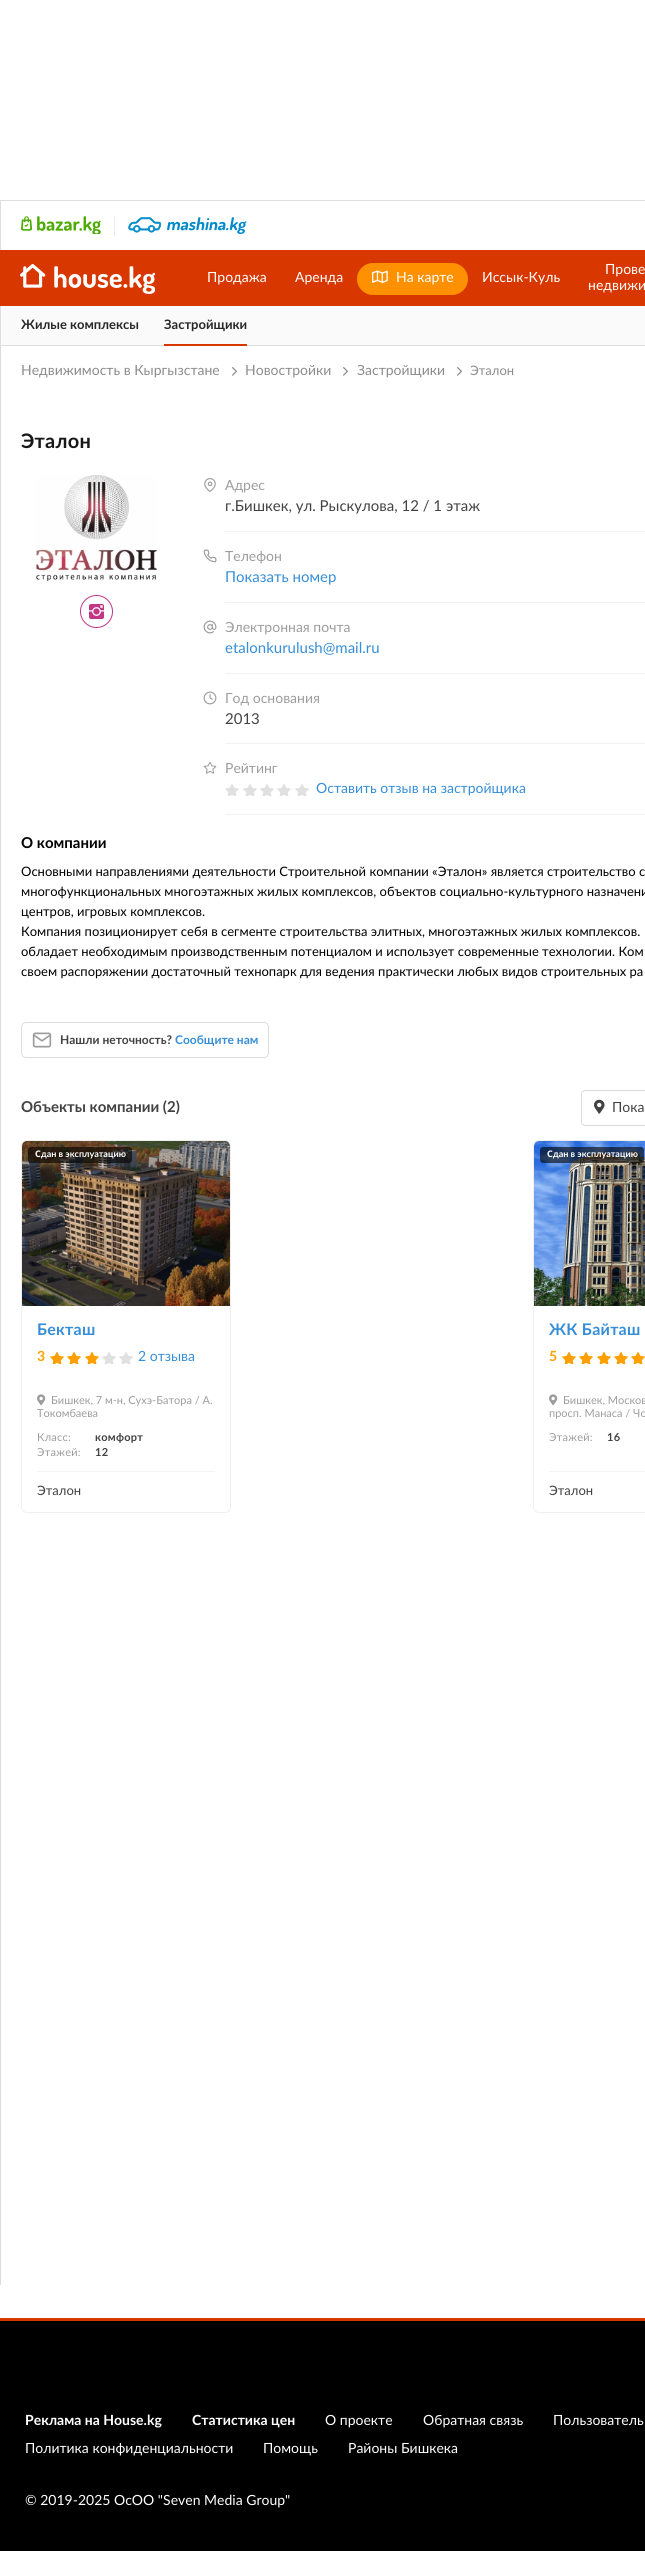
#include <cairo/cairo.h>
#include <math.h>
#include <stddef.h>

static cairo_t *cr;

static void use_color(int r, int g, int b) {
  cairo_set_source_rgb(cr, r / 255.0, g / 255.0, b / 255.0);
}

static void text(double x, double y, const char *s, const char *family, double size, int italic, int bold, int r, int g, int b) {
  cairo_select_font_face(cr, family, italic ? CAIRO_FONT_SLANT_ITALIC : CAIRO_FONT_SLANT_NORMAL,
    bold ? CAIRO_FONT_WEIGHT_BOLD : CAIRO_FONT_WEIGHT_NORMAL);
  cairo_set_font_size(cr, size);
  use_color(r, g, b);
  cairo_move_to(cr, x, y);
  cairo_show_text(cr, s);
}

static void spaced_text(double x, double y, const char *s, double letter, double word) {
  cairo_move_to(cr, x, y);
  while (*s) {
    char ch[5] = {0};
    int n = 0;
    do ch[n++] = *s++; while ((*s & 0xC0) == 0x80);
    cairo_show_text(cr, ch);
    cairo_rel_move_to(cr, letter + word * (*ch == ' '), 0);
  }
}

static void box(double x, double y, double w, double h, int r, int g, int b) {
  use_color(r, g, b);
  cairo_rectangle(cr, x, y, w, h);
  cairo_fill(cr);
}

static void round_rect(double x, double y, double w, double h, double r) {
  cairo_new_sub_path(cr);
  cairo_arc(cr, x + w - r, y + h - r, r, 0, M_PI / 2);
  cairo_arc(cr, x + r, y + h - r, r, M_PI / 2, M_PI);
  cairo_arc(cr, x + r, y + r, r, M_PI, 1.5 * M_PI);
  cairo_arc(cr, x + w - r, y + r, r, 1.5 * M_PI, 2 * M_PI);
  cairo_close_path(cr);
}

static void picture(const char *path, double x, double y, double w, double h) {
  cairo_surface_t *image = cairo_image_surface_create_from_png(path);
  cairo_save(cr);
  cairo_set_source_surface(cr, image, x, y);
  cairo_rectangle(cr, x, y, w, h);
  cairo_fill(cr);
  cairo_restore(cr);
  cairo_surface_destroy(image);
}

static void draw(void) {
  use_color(255, 255, 255);
  cairo_paint(cr);
  box(0, 200, 645, 1, 222, 222, 222);
  box(0, 200, 1, 50, 222, 222, 222);
  picture("img_01.png", 21, 216, 80, 18);
  box(114, 216, 1, 20, 236, 236, 236);
  picture("img_02.png", 128, 217, 119, 17);
  box(0, 250, 645, 56, 216, 55, 0);
  picture("img_03.png", 20, 264, 135, 30);
  use_color(255, 144, 0);
  round_rect(357, 263, 111, 32, 16);
  cairo_fill(cr);
  picture("img_04.png", 372, 270, 16, 13);
  box(1, 306, 644, 39, 250, 250, 250);
  box(0, 345, 645, 1, 222, 222, 222);
  box(0, 306, 1, 40, 222, 222, 222);
  box(164, 344, 83, 2, 216, 55, 0);
  box(0, 346, 1, 1939, 220, 220, 220);
  picture("img_05.png", 232, 367, 5, 9);
  picture("img_05.png", 343, 367, 5, 9);
  picture("img_05.png", 457, 367, 5, 9);
  picture("img_06.png", 35, 475, 122, 106);
  picture("img_07.png", 80, 595, 33, 33);
  picture("img_08.png", 204, 478, 12, 14);
  box(225, 531, 420, 1, 241, 241, 241);
  picture("img_09.png", 203, 549, 14, 14);
  box(225, 602, 420, 1, 241, 241, 241);
  picture("img_10.png", 203, 620, 14, 14);
  box(225, 673, 420, 1, 241, 241, 241);
  picture("img_11.png", 203, 691, 14, 14);
  box(225, 743, 420, 1, 241, 241, 241);
  picture("img_12.png", 203, 761, 14, 13);
  box(225, 814, 420, 1, 241, 241, 241);
  picture("img_13.png", 225, 784, 14, 12);
  picture("img_13.png", 243, 784, 14, 12);
  picture("img_13.png", 260, 784, 14, 12);
  picture("img_13.png", 277, 784, 14, 12);
  picture("img_13.png", 295, 784, 14, 12);
  picture("img_14.png", 32, 1032, 20, 16);
  round_rect(21.5, 1022.5, 247, 35, 4.5);
  use_color(221, 221, 221);
  cairo_set_line_width(cr, 1);
  cairo_stroke(cr);
  round_rect(581.5, 1090.5, 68, 35, 3.5);
  cairo_stroke(cr);
  picture("img_15.png", 594, 1099, 11, 15);
  round_rect(21.5, 1140.5, 209, 372, 5.5);
  use_color(239, 239, 239);
  cairo_stroke(cr);
  picture("img_16.png", 22, 1141, 208, 165);
  cairo_set_source_rgba(cr, 0, 0, 0, 0.6);
  round_rect(28, 1147, 104, 16, 3);
  cairo_fill(cr);
  picture("img_17.png", 50, 1352, 14, 12);
  picture("img_17.png", 67, 1352, 14, 12);
  picture("img_17.png", 85, 1352, 14, 12);
  picture("img_13.png", 102, 1352, 14, 12);
  picture("img_13.png", 119, 1352, 14, 12);
  picture("img_18.png", 37, 1394, 9, 12);
  box(37, 1471, 178, 1, 244, 244, 244);
  round_rect(533.5, 1140.5, 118, 372, 5.5);
  use_color(239, 239, 239);
  cairo_stroke(cr);
  picture("img_19.png", 534, 1141, 111, 165);
  cairo_set_source_rgba(cr, 0, 0, 0, 0.6);
  round_rect(540, 1147, 104, 16, 3);
  cairo_fill(cr);
  picture("img_17.png", 562, 1352, 14, 12);
  picture("img_17.png", 579, 1352, 14, 12);
  picture("img_17.png", 597, 1352, 14, 12);
  picture("img_17.png", 614, 1352, 14, 12);
  picture("img_17.png", 631, 1352, 14, 12);
  picture("img_18.png", 549, 1394, 9, 12);
  box(549, 1471, 96, 1, 244, 244, 244);
  box(0, 2321, 645, 230, 0, 0, 0);
  box(0, 2318, 645, 3, 216, 55, 0);
  text(207, 282, "Продажа", "Lato", 14, 0, 0, 255, 255, 255);
  text(295, 282, "Аренда", "Lato", 14, 0, 0, 255, 255, 255);
  text(396, 282, "На карте", "Lato", 14, 0, 0, 255, 255, 255);
  text(482, 282, "Иссык-Куль", "Lato", 14, 0, 0, 255, 255, 255);
  text(605, 274, "Прове", "Lato", 14, 0, 0, 255, 255, 255);
  text(588, 290, "недвижи", "Lato", 14, 0, 0, 255, 255, 255);
  text(21, 329, "Жилые комплексы", "Lato", 13, 0, 1, 39, 39, 39);
  text(164, 329, "Застройщики", "Lato", 13, 0, 1, 39, 39, 39);
  text(21, 375, "Недвижимость в Кыргызстане", "Lato", 14, 0, 0, 140, 140, 140);
  text(245, 375, "Новостройки", "Lato", 14, 0, 0, 140, 140, 140);
  text(357, 375, "Застройщики", "Lato", 14, 0, 0, 140, 140, 140);
  text(470, 375, "Эталон", "Lato", 13, 0, 0, 140, 140, 140);
  cairo_select_font_face(cr, "Lato", CAIRO_FONT_SLANT_NORMAL, CAIRO_FONT_WEIGHT_BOLD);
  cairo_set_font_size(cr, 20);
  use_color(24, 24, 24);
  spaced_text(21, 448, "Эталон", 0.25, 0);
  text(225, 490, "Адрес", "Lato", 14, 0, 0, 157, 157, 157);
  text(225, 511, "г.Бишкек, ул. Рыскулова, 12 / 1 этаж", "Lato", 15, 0, 0, 66, 66, 66);
  text(225, 561, "Телефон", "Lato", 14, 0, 0, 157, 157, 157);
  text(225, 582, "Показать номер", "Lato", 15, 0, 0, 54, 142, 216);
  text(225, 632, "Электронная почта", "Lato", 14, 0, 0, 157, 157, 157);
  text(225, 653, "etalonkurulush@mail.ru", "Lato", 15, 0, 0, 54, 142, 216);
  text(225, 703, "Год основания", "Lato", 14, 0, 0, 157, 157, 157);
  text(225, 724, "2013", "Lato", 15, 0, 0, 66, 66, 66);
  text(225, 773, "Рейтинг", "Lato", 14, 0, 0, 157, 157, 157);
  text(316, 793, "Оставить отзыв на застройщика", "Lato", 14, 0, 0, 54, 142, 216);
  text(21, 848, "О компании", "Lato", 15, 0, 1, 0, 0, 0);
  text(21, 876, "Основными направлениями деятельности Строительной компании «Эталон» является строительство с", "Lato", 13, 0, 0, 0, 0, 0);
  text(21, 896, "многофункциональных многоэтажных жилых комплексов, объектов социально-культурного назначени", "Lato", 13, 0, 0, 0, 0, 0);
  text(21, 916, "центров, игровых комплексов.", "Lato", 13, 0, 0, 0, 0, 0);
  text(21, 936, "Компания позиционирует себя в сегменте строительства элитных, многоэтажных жилых комплексов.", "Lato", 13, 0, 0, 0, 0, 0);
  text(21, 956, "обладает необходимым производственным потенциалом и использует современные технологии. Ком", "Lato", 13, 0, 0, 0, 0, 0);
  text(21, 976, "своем распоряжении достаточный технопарк для ведения практически любых видов строительных ра", "Lato", 13, 0, 0, 0, 0, 0);
  text(60, 1044, "Нашли неточность?", "Lato", 12, 0, 1, 66, 66, 66);
  text(175, 1044, "Сообщите нам", "Lato", 12, 0, 1, 54, 142, 216);
  text(21, 1112, "Объекты компании (2)", "Lato", 15, 0, 1, 66, 66, 66);
  text(612, 1112, "Пока", "Lato", 14, 0, 0, 66, 66, 66);
  text(35, 1157, "С", "Noto Sans", 9, 0, 1, 255, 255, 255);
  text(41, 1157, "дан в эксплуатацию", "Lato", 9, 0, 1, 255, 255, 255);
  cairo_set_font_size(cr, 16);
  use_color(54, 142, 216);
  spaced_text(37, 1335, "Бекташ", 0.25, 0);
  text(37, 1361, "3", "Lato", 14, 0, 1, 255, 160, 0);
  text(138, 1361, "2 отзыва", "Lato", 14, 0, 0, 54, 142, 216);
  text(51, 1404, "Бишкек, 7 м-н, Сухэ-Батора / А.", "Lato", 11, 0, 0, 157, 157, 157);
  text(37, 1417, "Токомбаева", "Lato", 11, 0, 0, 157, 157, 157);
  spaced_text(37, 1441, "Класс:", 0.25, 0);
  cairo_select_font_face(cr, "Lato", CAIRO_FONT_SLANT_NORMAL, CAIRO_FONT_WEIGHT_BOLD);
  use_color(66, 66, 66);
  spaced_text(95, 1441, "комфорт", 0.25, 0);
  cairo_select_font_face(cr, "Lato", CAIRO_FONT_SLANT_NORMAL, CAIRO_FONT_WEIGHT_NORMAL);
  use_color(157, 157, 157);
  spaced_text(37, 1456, "Этажей:", 0.25, 0);
  cairo_select_font_face(cr, "Lato", CAIRO_FONT_SLANT_NORMAL, CAIRO_FONT_WEIGHT_BOLD);
  use_color(66, 66, 66);
  spaced_text(95, 1456, "12", 0.25, 0);
  text(37, 1495, "Эталон", "Lato", 13, 0, 0, 66, 66, 66);
  text(547, 1157, "С", "Noto Sans", 9, 0, 1, 255, 255, 255);
  text(553, 1157, "дан в эксплуатацию", "Lato", 9, 0, 1, 255, 255, 255);
  cairo_set_font_size(cr, 16);
  use_color(54, 142, 216);
  spaced_text(549, 1335, "ЖК Байташ", 0.25, 0);
  text(549, 1361, "5", "Lato", 14, 0, 1, 255, 160, 0);
  text(563, 1404, "Бишкек, Москов", "Lato", 11, 0, 0, 157, 157, 157);
  text(549, 1417, "просп. Манаса / Чо", "Lato", 11, 0, 0, 157, 157, 157);
  spaced_text(549, 1441, "Этажей:", 0.25, 0);
  cairo_select_font_face(cr, "Lato", CAIRO_FONT_SLANT_NORMAL, CAIRO_FONT_WEIGHT_BOLD);
  use_color(66, 66, 66);
  spaced_text(607, 1441, "16", 0.25, 0);
  text(549, 1495, "Эталон", "Lato", 13, 0, 0, 66, 66, 66);
  text(25, 2425, "Реклама на House.kg", "Lato", 14, 0, 1, 255, 255, 255);
  text(192, 2425, "Статистика цен", "Lato", 14, 0, 1, 255, 255, 255);
  text(325, 2425, "О проекте", "Lato", 14, 0, 0, 255, 255, 255);
  text(423, 2425, "Обратная связь", "Lato", 14, 0, 0, 255, 255, 255);
  text(553, 2425, "Пользователь", "Lato", 14, 0, 0, 255, 255, 255);
  text(25, 2453, "Политика конфиденциальности", "Lato", 14, 0, 0, 255, 255, 255);
  text(263, 2453, "Помощь", "Lato", 14, 0, 0, 255, 255, 255);
  text(348, 2453, "Районы Бишкека", "Lato", 14, 0, 0, 255, 255, 255);
  text(25, 2505, "© 2019-2025 ОсОО \"Seven Media Group\"", "Lato", 14, 0, 0, 255, 255, 255);
}

int main(void) {
  cairo_surface_t *surface = cairo_image_surface_create(CAIRO_FORMAT_RGB24, 645, 2551);
  cr = cairo_create(surface);
  cairo_font_options_t *options = cairo_font_options_create();
  cairo_font_options_set_hint_metrics(options, CAIRO_HINT_METRICS_OFF);
  cairo_font_options_set_hint_style(options, CAIRO_HINT_STYLE_NONE);
  cairo_set_font_options(cr, options);
  cairo_set_miter_limit(cr, 4);
  draw();
  cairo_surface_write_to_png(surface, "out.png");
  cairo_font_options_destroy(options);
  cairo_destroy(cr);
  cairo_surface_destroy(surface);
  return 0;
}
